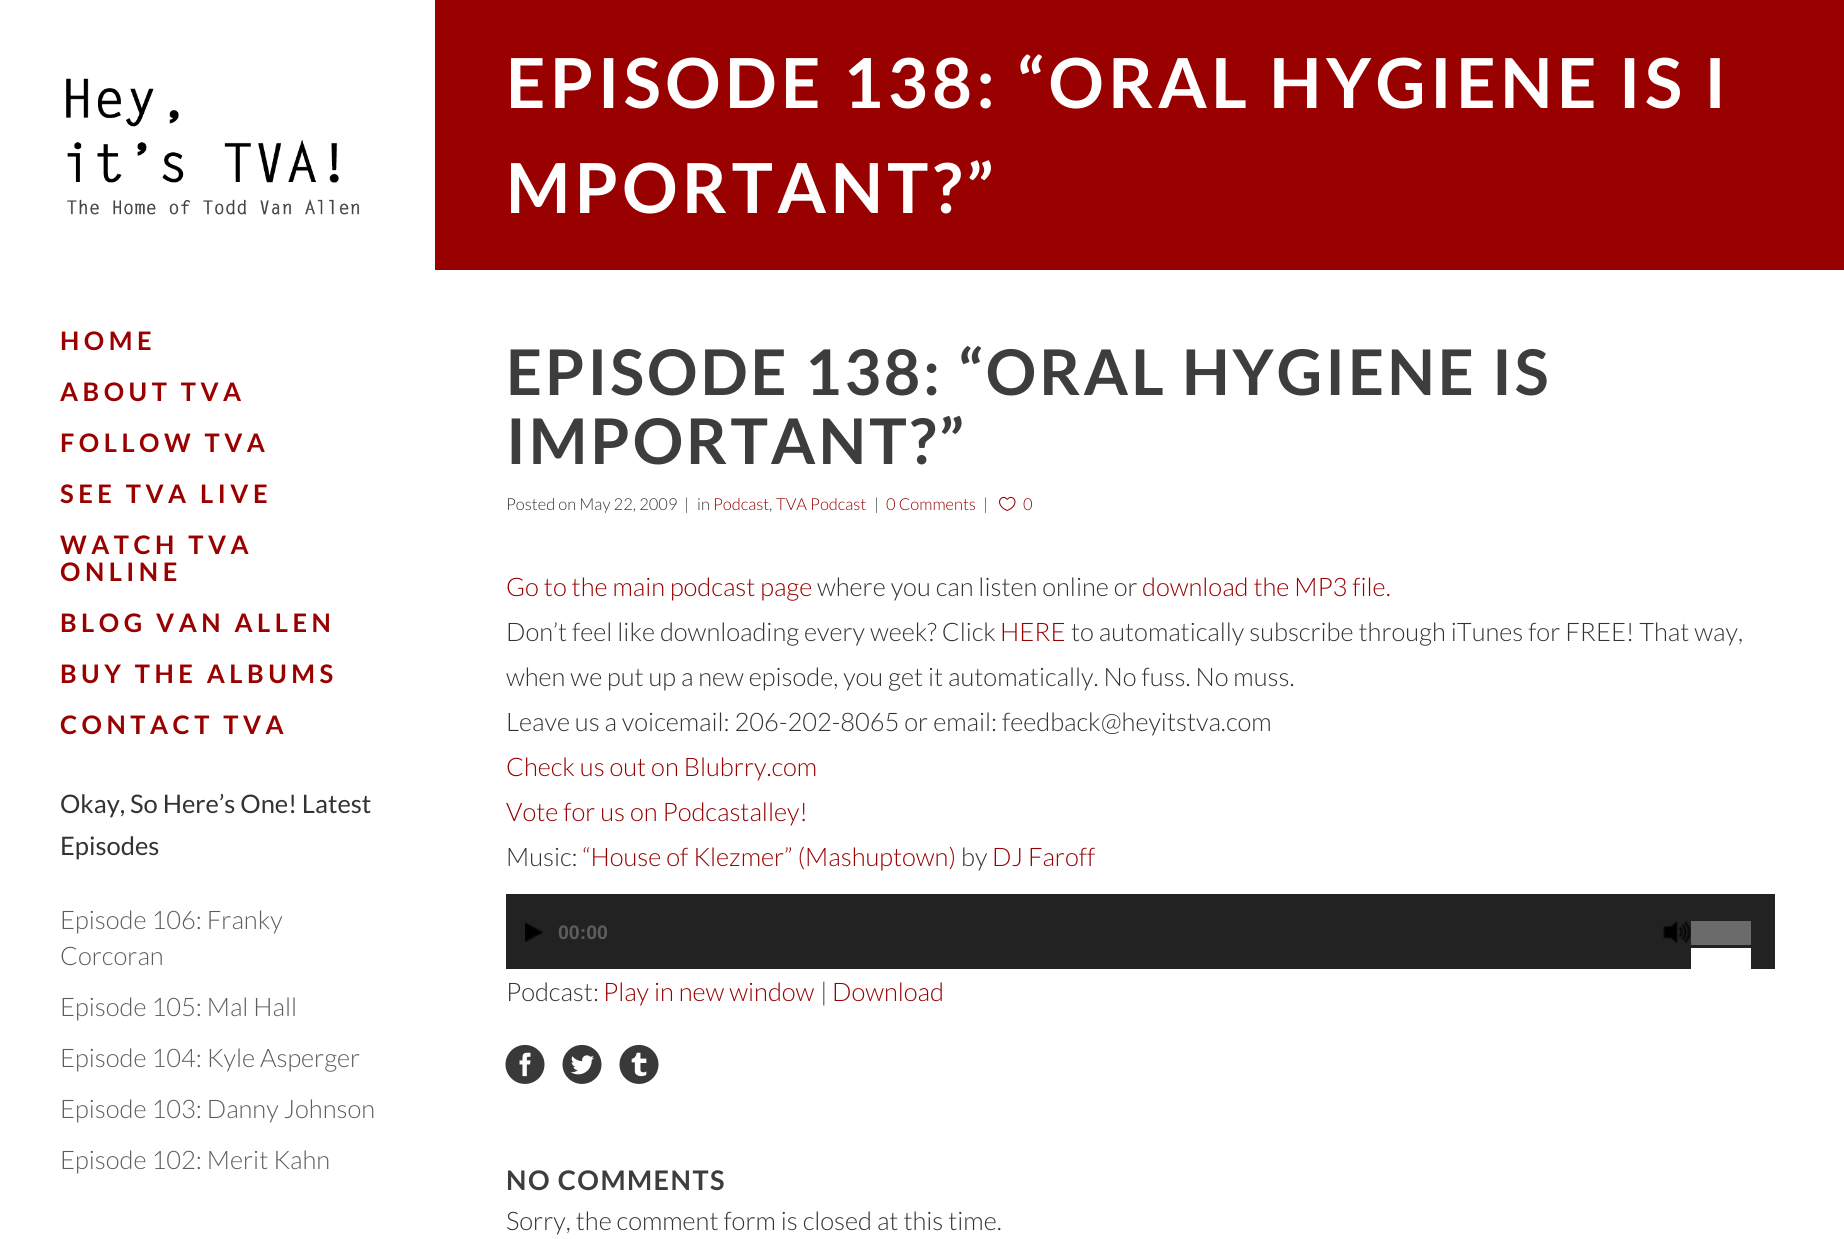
#include <cairo/cairo.h>
#include <math.h>
#include <stddef.h>

static cairo_t *cr;

static void use_color(int r, int g, int b) {
  cairo_set_source_rgb(cr, r / 255.0, g / 255.0, b / 255.0);
}

static void text(double x, double y, const char *s, const char *family, double size, int italic, int bold, int r, int g, int b) {
  cairo_select_font_face(cr, family, italic ? CAIRO_FONT_SLANT_ITALIC : CAIRO_FONT_SLANT_NORMAL,
    bold ? CAIRO_FONT_WEIGHT_BOLD : CAIRO_FONT_WEIGHT_NORMAL);
  cairo_set_font_size(cr, size);
  use_color(r, g, b);
  cairo_move_to(cr, x, y);
  cairo_show_text(cr, s);
}

static void spaced_text(double x, double y, const char *s, double letter, double word) {
  cairo_move_to(cr, x, y);
  while (*s) {
    char ch[5] = {0};
    int n = 0;
    do ch[n++] = *s++; while ((*s & 0xC0) == 0x80);
    cairo_show_text(cr, ch);
    cairo_rel_move_to(cr, letter + word * (*ch == ' '), 0);
  }
}

static void box(double x, double y, double w, double h, int r, int g, int b) {
  use_color(r, g, b);
  cairo_rectangle(cr, x, y, w, h);
  cairo_fill(cr);
}

static void picture(const char *path, double x, double y, double w, double h) {
  cairo_surface_t *image = cairo_image_surface_create_from_png(path);
  cairo_save(cr);
  cairo_set_source_surface(cr, image, x, y);
  cairo_rectangle(cr, x, y, w, h);
  cairo_fill(cr);
  cairo_restore(cr);
  cairo_surface_destroy(image);
}

static void draw(void) {
  use_color(255, 255, 255);
  cairo_paint(cr);
  picture("img_01.png", 66, 78, 294, 137);
  box(435, 0, 1409, 270, 153, 0, 0);
  picture("img_02.png", 999, 496, 17, 15);
  box(506, 894, 1269, 75, 34, 34, 34);
  picture("img_03.png", 525, 922, 18, 20);
  picture("img_04.png", 1663, 921, 28, 22);
  box(1691, 921, 60, 24, 107, 107, 107);
  box(1691, 948, 60, 21, 255, 255, 255);
  picture("img_05.png", 505, 1044, 40, 40);
  picture("img_06.png", 562, 1044, 40, 40);
  picture("img_07.png", 619, 1044, 40, 40);
  cairo_select_font_face(cr, "Lato", CAIRO_FONT_SLANT_NORMAL, CAIRO_FONT_WEIGHT_BOLD);
  cairo_set_font_size(cr, 25.5);
  use_color(153, 0, 0);
  spaced_text(60, 350, "HOME", 4.5, 0);
  spaced_text(60, 401, "ABOUT TVA", 4.5, 0);
  spaced_text(60, 452, "FOLLOW TVA", 4.5, 0);
  spaced_text(60, 503, "SEE TVA LIVE", 4.5, 0);
  spaced_text(60, 554, "WATCH TVA", 4.5, 0);
  spaced_text(60, 581, "ONLINE", 4.5, 0);
  spaced_text(60, 632, "BLOG VAN ALLEN", 4.5, 0);
  spaced_text(60, 683, "BUY THE ALBUMS", 4.5, 0);
  spaced_text(60, 734, "CONTACT TVA", 4.5, 0);
  text(60, 813, "Okay, So Here’s One! Latest", "Lato", 25.5, 0, 0, 51, 51, 51);
  text(60, 855, "Episodes", "Lato", 25.5, 0, 0, 51, 51, 51);
  text(60, 929, "Episode 106: Franky", "Lato Light", 25.5, 0, 0, 93, 93, 93);
  text(60, 965, "Corcoran", "Lato Light", 25.5, 0, 0, 93, 93, 93);
  text(60, 1016, "Episode 105: Mal Hall", "Lato Light", 25.5, 0, 0, 93, 93, 93);
  text(60, 1067, "Episode 104: Kyle Asperger", "Lato Light", 25.5, 0, 0, 93, 93, 93);
  text(60, 1118, "Episode 103: Danny Johnson", "Lato Light", 25.5, 0, 0, 93, 93, 93);
  text(60, 1169, "Episode 102: Merit Kahn", "Lato Light", 25.5, 0, 0, 93, 93, 93);
  cairo_select_font_face(cr, "Lato", CAIRO_FONT_SLANT_NORMAL, CAIRO_FONT_WEIGHT_BOLD);
  cairo_set_font_size(cr, 69);
  use_color(255, 255, 255);
  spaced_text(506, 108, "EPISODE 138: “ORAL HYGIENE IS I", 4.5, 0);
  spaced_text(506, 213, "MPORTANT?”", 4.5, 0);
  cairo_set_font_size(cr, 63);
  use_color(62, 61, 61);
  spaced_text(506, 395, "EPISODE 138: “ORAL HYGIENE IS", 3, 0);
  spaced_text(506, 464, "IMPORTANT?”", 3, 0);
  text(506, 510, "Posted on May 22, 2009", "Lato Light", 16.5, 0, 0, 51, 51, 51);
  text(684, 510, "|", "Lato Light", 16.5, 0, 0, 51, 51, 51);
  text(697, 510, "in", "Lato Light", 16.5, 0, 0, 51, 51, 51);
  text(713, 510, "Podcast", "Lato Light", 16.5, 0, 0, 153, 0, 0);
  text(769, 510, ",", "Lato Light", 16.5, 0, 0, 51, 51, 51);
  text(776, 510, "TVA Podcast", "Lato Light", 16.5, 0, 0, 153, 0, 0);
  text(874, 510, "|", "Lato Light", 16.5, 0, 0, 51, 51, 51);
  text(886, 510, "0 Comments", "Lato Light", 16.5, 0, 0, 153, 0, 0);
  text(983, 510, "|", "Lato Light", 16.5, 0, 0, 51, 51, 51);
  text(1023, 510, "0", "Lato Light", 16.5, 0, 0, 153, 0, 0);
  text(506, 596, "Go to the main podcast page", "Lato Light", 25.5, 0, 0, 153, 0, 0);
  text(817, 596, "where you can listen online or", "Lato Light", 25.5, 0, 0, 51, 51, 51);
  text(1142, 596, "download the MP3 file.", "Lato Light", 25.5, 0, 0, 153, 0, 0);
  text(506, 641, "Don’t feel like downloading every week? Click", "Lato Light", 25.5, 0, 0, 51, 51, 51);
  text(1000, 641, "HERE", "Lato Light", 25.5, 0, 0, 153, 0, 0);
  text(1071, 641, "to automatically subscribe through iTunes for FREE! That way,", "Lato Light", 25.5, 0, 0, 51, 51, 51);
  text(506, 686, "when we put up a new episode, you get it automatically. No fuss. No muss.", "Lato Light", 25.5, 0, 0, 51, 51, 51);
  text(506, 731, "Leave us a voicemail: 206-202-8065 or email: feedback@heyitstva.com", "Lato Light", 25.5, 0, 0, 51, 51, 51);
  text(506, 776, "Check us out on Blubrry.com", "Lato Light", 25.5, 0, 0, 153, 0, 0);
  text(506, 821, "Vote for us on Podcastalley!", "Lato Light", 25.5, 0, 0, 153, 0, 0);
  text(506, 866, "Music:", "Lato Light", 25.5, 0, 0, 51, 51, 51);
  text(582, 866, "“House of Klezmer” (Mashuptown)", "Lato Light", 25.5, 0, 0, 153, 0, 0);
  text(961, 866, "by", "Lato Light", 25.5, 0, 0, 51, 51, 51);
  text(992, 866, "DJ Faroff", "Lato Light", 25.5, 0, 0, 153, 0, 0);
  text(558, 939, "00:00", "Liberation Sans", 19.5, 0, 1, 93, 93, 93);
  text(506, 1001, "Podcast:", "Lato Light", 25.5, 0, 0, 51, 51, 51);
  text(603, 1001, "Play in new window", "Lato Light", 25.5, 0, 0, 153, 0, 0);
  text(820, 1001, "|", "Lato Light", 25.5, 0, 0, 51, 51, 51);
  text(832, 1001, "Download", "Lato Light", 25.5, 0, 0, 153, 0, 0);
  cairo_select_font_face(cr, "Lato", CAIRO_FONT_SLANT_NORMAL, CAIRO_FONT_WEIGHT_BOLD);
  cairo_set_font_size(cr, 27);
  use_color(62, 61, 61);
  spaced_text(506, 1190, "NO COMMENTS", 1.5, 0);
  text(506, 1230, "Sorry, the comment form is closed at this time.", "Lato Light", 25.5, 0, 0, 51, 51, 51);
}

int main(void) {
  cairo_surface_t *surface = cairo_image_surface_create(CAIRO_FORMAT_RGB24, 1844, 1239);
  cr = cairo_create(surface);
  cairo_font_options_t *options = cairo_font_options_create();
  cairo_font_options_set_hint_metrics(options, CAIRO_HINT_METRICS_OFF);
  cairo_font_options_set_hint_style(options, CAIRO_HINT_STYLE_NONE);
  cairo_set_font_options(cr, options);
  cairo_set_miter_limit(cr, 4);
  draw();
  cairo_surface_write_to_png(surface, "out.png");
  cairo_font_options_destroy(options);
  cairo_destroy(cr);
  cairo_surface_destroy(surface);
  return 0;
}
